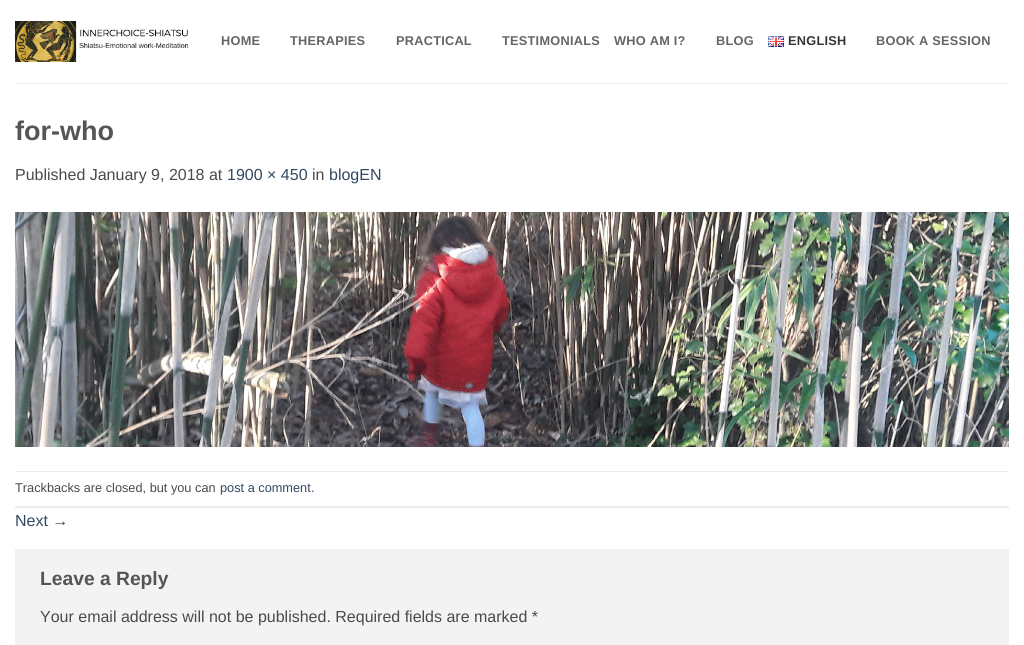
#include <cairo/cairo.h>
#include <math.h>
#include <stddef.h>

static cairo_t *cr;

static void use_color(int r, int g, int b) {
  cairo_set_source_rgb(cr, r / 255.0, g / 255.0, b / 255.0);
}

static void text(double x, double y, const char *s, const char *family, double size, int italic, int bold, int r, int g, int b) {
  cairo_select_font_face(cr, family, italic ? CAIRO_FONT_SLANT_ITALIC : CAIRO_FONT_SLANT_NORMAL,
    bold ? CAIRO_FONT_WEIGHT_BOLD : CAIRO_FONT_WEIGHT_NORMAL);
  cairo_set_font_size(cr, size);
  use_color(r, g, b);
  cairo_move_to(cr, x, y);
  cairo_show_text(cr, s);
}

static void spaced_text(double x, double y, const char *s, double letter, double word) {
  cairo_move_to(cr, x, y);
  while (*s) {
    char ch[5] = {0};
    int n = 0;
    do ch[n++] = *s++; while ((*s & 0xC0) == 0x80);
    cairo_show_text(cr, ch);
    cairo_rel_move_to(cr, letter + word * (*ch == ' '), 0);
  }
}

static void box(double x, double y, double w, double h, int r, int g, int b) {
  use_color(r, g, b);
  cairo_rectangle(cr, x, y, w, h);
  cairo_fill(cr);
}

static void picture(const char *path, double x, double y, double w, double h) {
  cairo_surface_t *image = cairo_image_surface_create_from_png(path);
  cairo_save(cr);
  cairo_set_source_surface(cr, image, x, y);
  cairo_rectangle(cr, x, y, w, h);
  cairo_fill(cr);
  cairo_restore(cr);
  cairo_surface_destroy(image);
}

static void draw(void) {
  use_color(255, 255, 255);
  cairo_paint(cr);
  picture("img_01.png", 15, 21, 174, 41);
  picture("img_02.png", 768, 36, 16, 11);
  box(15, 83, 994, 1, 237, 237, 237);
  picture("img_03.png", 15, 212, 994, 235);
  box(15, 471, 994, 1, 236, 236, 236);
  box(15, 506, 994, 2, 236, 236, 236);
  box(15, 549, 994, 96, 243, 243, 243);
  cairo_select_font_face(cr, "Liberation Sans", CAIRO_FONT_SLANT_NORMAL, CAIRO_FONT_WEIGHT_BOLD);
  cairo_set_font_size(cr, 12.75);
  use_color(101, 101, 101);
  spaced_text(221, 45, "HOME", 0.25, 0);
  spaced_text(290, 45, "THERAPIES", 0.25, 0);
  spaced_text(396, 45, "PRACTICAL", 0.25, 0);
  spaced_text(502, 45, "TESTIMONIALS", 0.25, 0);
  spaced_text(614, 45, "WHO AM I?", 0.25, 0);
  spaced_text(716, 45, "BLOG", 0.25, 0);
  use_color(54, 54, 54);
  spaced_text(788, 45, "ENGLISH", 0.25, 0);
  use_color(101, 101, 101);
  spaced_text(876, 45, "BOOK A SESSION", 0.25, 0);
  text(15, 140, "for-who", "Liberation Sans", 27, 0, 1, 85, 85, 85);
  text(15, 180, "Published January 9, 2018 at", "Liberation Sans", 16, 0, 0, 74, 74, 74);
  text(227, 180, "1900 × 450", "Liberation Sans", 16, 0, 0, 51, 72, 98);
  text(312, 180, "in", "Liberation Sans", 16, 0, 0, 74, 74, 74);
  text(329, 180, "blogEN", "Liberation Sans", 16, 0, 0, 51, 72, 98);
  text(15, 492, "Trackbacks are closed, but you can", "Liberation Sans", 12.75, 0, 0, 74, 74, 74);
  text(220, 492, "post a comment", "Liberation Sans", 12.75, 0, 0, 51, 72, 98);
  text(311, 492, ".", "Liberation Sans", 12.75, 0, 0, 74, 74, 74);
  text(15, 526, "Next →", "Liberation Sans", 16, 0, 0, 51, 72, 98);
  text(40, 585, "Leave a Reply", "Liberation Sans", 19.25, 0, 1, 85, 85, 85);
  text(40, 622, "Your email address will not be published. Required fields are marked *", "Liberation Sans", 16, 0, 0, 74, 74, 74);
}

int main(void) {
  cairo_surface_t *surface = cairo_image_surface_create(CAIRO_FORMAT_RGB24, 1024, 645);
  cr = cairo_create(surface);
  cairo_font_options_t *options = cairo_font_options_create();
  cairo_font_options_set_hint_metrics(options, CAIRO_HINT_METRICS_OFF);
  cairo_font_options_set_hint_style(options, CAIRO_HINT_STYLE_NONE);
  cairo_set_font_options(cr, options);
  cairo_set_miter_limit(cr, 4);
  draw();
  cairo_surface_write_to_png(surface, "out.png");
  cairo_font_options_destroy(options);
  cairo_destroy(cr);
  cairo_surface_destroy(surface);
  return 0;
}
